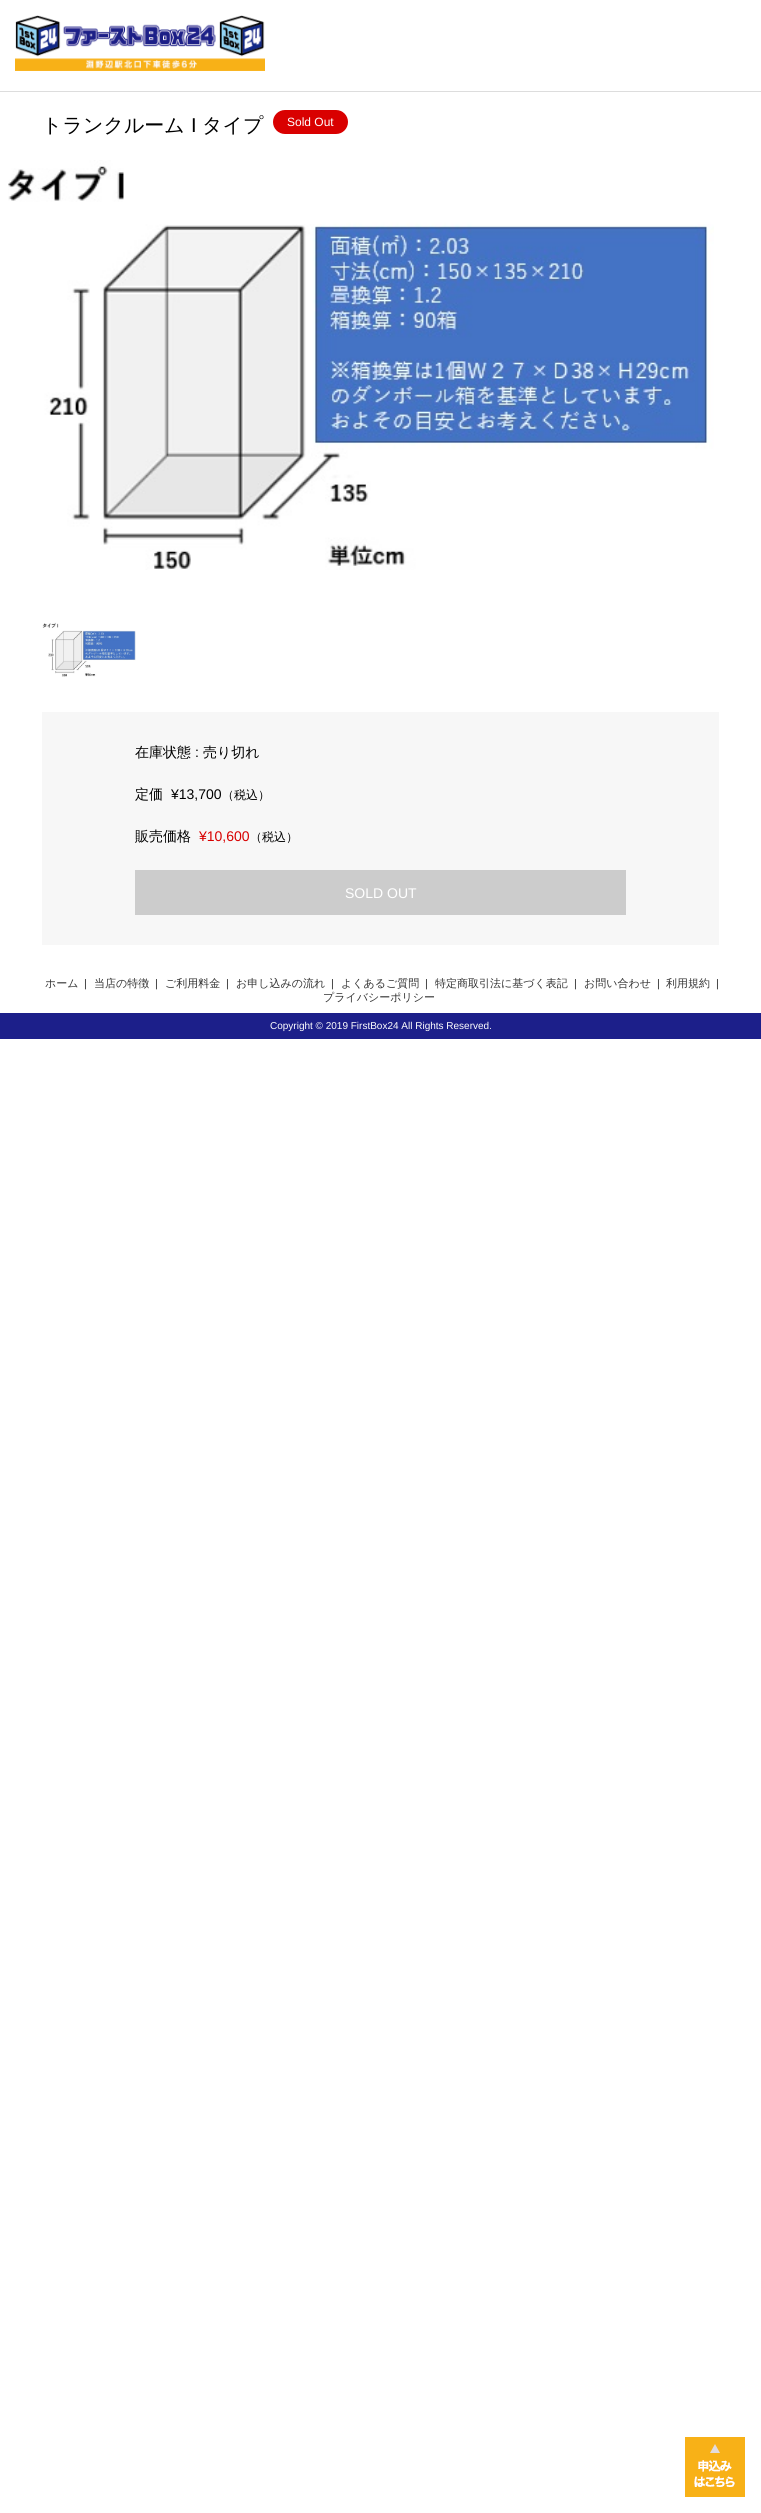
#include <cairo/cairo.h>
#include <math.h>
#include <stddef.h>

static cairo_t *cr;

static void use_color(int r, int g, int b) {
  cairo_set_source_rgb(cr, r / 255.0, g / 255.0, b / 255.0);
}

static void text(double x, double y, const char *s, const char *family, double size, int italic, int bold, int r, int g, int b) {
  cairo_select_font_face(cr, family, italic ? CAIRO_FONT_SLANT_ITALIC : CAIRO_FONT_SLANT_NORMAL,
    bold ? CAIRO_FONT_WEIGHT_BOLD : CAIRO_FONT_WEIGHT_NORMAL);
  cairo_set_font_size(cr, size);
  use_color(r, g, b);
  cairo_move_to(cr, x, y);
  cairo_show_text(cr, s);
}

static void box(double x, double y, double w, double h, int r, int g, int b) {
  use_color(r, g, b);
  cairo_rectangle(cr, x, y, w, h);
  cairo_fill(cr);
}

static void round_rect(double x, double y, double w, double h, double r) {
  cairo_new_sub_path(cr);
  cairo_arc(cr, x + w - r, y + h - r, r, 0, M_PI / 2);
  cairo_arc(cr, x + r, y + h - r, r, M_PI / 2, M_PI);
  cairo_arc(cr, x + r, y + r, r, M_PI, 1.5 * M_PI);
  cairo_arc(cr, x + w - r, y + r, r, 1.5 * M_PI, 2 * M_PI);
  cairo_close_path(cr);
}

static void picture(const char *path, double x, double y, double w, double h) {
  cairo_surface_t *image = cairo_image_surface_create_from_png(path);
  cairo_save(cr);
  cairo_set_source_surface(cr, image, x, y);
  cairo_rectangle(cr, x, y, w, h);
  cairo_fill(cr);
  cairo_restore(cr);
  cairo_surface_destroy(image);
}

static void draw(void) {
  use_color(255, 255, 255);
  cairo_paint(cr);
  picture("img_01.png", 15, 15, 250, 56);
  box(0, 91, 761, 1, 221, 221, 221);
  use_color(217, 0, 0);
  round_rect(273, 110, 75, 24, 12);
  cairo_fill(cr);
  picture("img_02.png", 8, 160, 706, 410);
  picture("img_03.png", 42, 622, 94, 55);
  box(42, 712, 677, 233, 247, 247, 247);
  box(135, 870, 491, 45, 204, 204, 204);
  box(0, 1013, 761, 26, 28, 31, 138);
  picture("img_04.png", 685, 2437, 60, 60);
  text(42, 132, "トランクルーム", "WenQuanYi Zen Hei Medium", 20, 0, 0, 0, 0, 0);
  text(191, 132, "I", "Liberation Sans", 20, 0, 0, 0, 0, 0);
  text(202, 132, "タイプ", "WenQuanYi Zen Hei Medium", 20, 0, 0, 0, 0, 0);
  text(287, 126, "Sold Out", "Liberation Sans", 12, 0, 0, 255, 255, 255);
  text(135, 757, "在庫状態", "WenQuanYi Zen Hei Medium", 14, 0, 0, 0, 0, 0);
  text(195, 757, ":", "Liberation Sans", 14, 0, 0, 0, 0, 0);
  text(203, 757, "売り切れ", "WenQuanYi Zen Hei Medium", 14, 0, 0, 0, 0, 0);
  text(135, 799, "定価", "WenQuanYi Zen Hei Medium", 14, 0, 0, 0, 0, 0);
  text(171, 799, "¥13,700", "Liberation Sans", 14, 0, 0, 0, 0, 0);
  text(222, 799, "（税込）", "WenQuanYi Zen Hei Medium", 12, 0, 0, 0, 0, 0);
  text(135, 841, "販売価格", "WenQuanYi Zen Hei Medium", 14, 0, 0, 0, 0, 0);
  text(199, 841, "¥10,600", "Liberation Sans", 14, 0, 0, 216, 0, 0);
  text(250, 841, "（税込）", "WenQuanYi Zen Hei Medium", 12, 0, 0, 0, 0, 0);
  text(345, 898, "SOLD OUT", "Liberation Sans", 14, 0, 0, 255, 255, 255);
  text(45, 987, "ホーム", "WenQuanYi Zen Hei Medium", 11, 0, 0, 51, 51, 51);
  text(84, 987, "|", "Liberation Sans", 11, 0, 0, 51, 51, 51);
  text(94, 987, "当店の特徴", "WenQuanYi Zen Hei Medium", 11, 0, 0, 51, 51, 51);
  text(155, 987, "|", "Liberation Sans", 11, 0, 0, 51, 51, 51);
  text(165, 987, "ご利用料金", "WenQuanYi Zen Hei Medium", 11, 0, 0, 51, 51, 51);
  text(226, 987, "|", "Liberation Sans", 11, 0, 0, 51, 51, 51);
  text(236, 987, "お申し込みの流れ", "WenQuanYi Zen Hei Medium", 11, 0, 0, 51, 51, 51);
  text(331, 987, "|", "Liberation Sans", 11, 0, 0, 51, 51, 51);
  text(341, 987, "よくあるご質問", "WenQuanYi Zen Hei Medium", 11, 0, 0, 51, 51, 51);
  text(425, 987, "|", "Liberation Sans", 11, 0, 0, 51, 51, 51);
  text(435, 987, "特定商取引法に基づく表記", "WenQuanYi Zen Hei Medium", 11, 0, 0, 51, 51, 51);
  text(574, 987, "|", "Liberation Sans", 11, 0, 0, 51, 51, 51);
  text(584, 987, "お問い合わせ", "WenQuanYi Zen Hei Medium", 11, 0, 0, 51, 51, 51);
  text(657, 987, "|", "Liberation Sans", 11, 0, 0, 51, 51, 51);
  text(666, 987, "利用規約", "WenQuanYi Zen Hei Medium", 11, 0, 0, 51, 51, 51);
  text(716, 987, "|", "Liberation Sans", 11, 0, 0, 51, 51, 51);
  text(323, 1001, "プライバシーポリシー", "WenQuanYi Zen Hei Medium", 11, 0, 0, 51, 51, 51);
  text(270, 1029, "Copyright © 2019 FirstBox24 All Rights Reserved.", "Liberation Sans", 10, 0, 0, 255, 255, 255);
}

int main(void) {
  cairo_surface_t *surface = cairo_image_surface_create(CAIRO_FORMAT_RGB24, 761, 2513);
  cr = cairo_create(surface);
  cairo_font_options_t *options = cairo_font_options_create();
  cairo_font_options_set_hint_metrics(options, CAIRO_HINT_METRICS_OFF);
  cairo_font_options_set_hint_style(options, CAIRO_HINT_STYLE_NONE);
  cairo_set_font_options(cr, options);
  cairo_set_miter_limit(cr, 4);
  draw();
  cairo_surface_write_to_png(surface, "out.png");
  cairo_font_options_destroy(options);
  cairo_destroy(cr);
  cairo_surface_destroy(surface);
  return 0;
}
